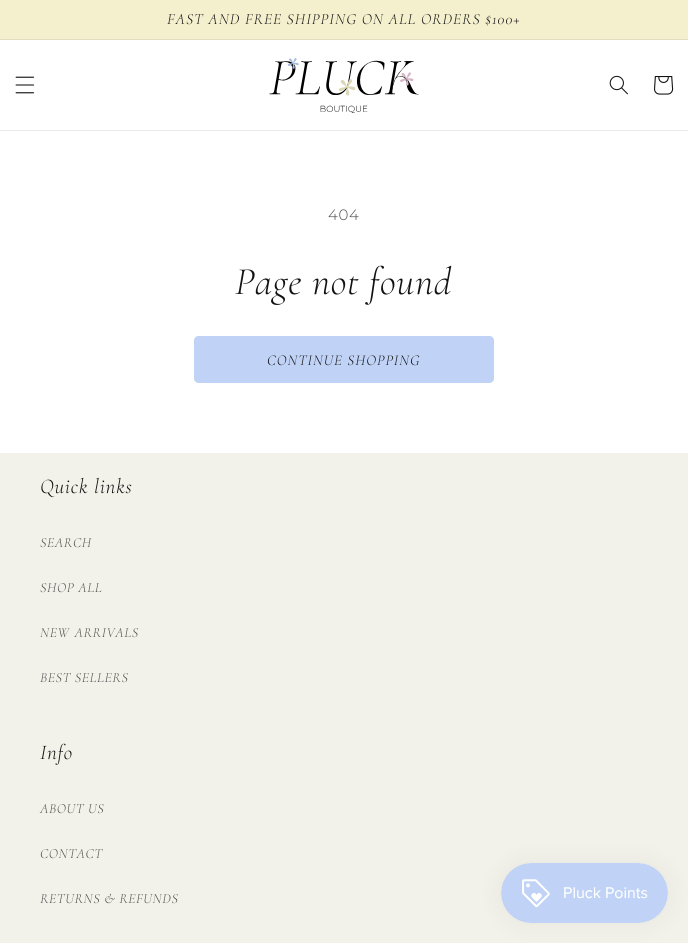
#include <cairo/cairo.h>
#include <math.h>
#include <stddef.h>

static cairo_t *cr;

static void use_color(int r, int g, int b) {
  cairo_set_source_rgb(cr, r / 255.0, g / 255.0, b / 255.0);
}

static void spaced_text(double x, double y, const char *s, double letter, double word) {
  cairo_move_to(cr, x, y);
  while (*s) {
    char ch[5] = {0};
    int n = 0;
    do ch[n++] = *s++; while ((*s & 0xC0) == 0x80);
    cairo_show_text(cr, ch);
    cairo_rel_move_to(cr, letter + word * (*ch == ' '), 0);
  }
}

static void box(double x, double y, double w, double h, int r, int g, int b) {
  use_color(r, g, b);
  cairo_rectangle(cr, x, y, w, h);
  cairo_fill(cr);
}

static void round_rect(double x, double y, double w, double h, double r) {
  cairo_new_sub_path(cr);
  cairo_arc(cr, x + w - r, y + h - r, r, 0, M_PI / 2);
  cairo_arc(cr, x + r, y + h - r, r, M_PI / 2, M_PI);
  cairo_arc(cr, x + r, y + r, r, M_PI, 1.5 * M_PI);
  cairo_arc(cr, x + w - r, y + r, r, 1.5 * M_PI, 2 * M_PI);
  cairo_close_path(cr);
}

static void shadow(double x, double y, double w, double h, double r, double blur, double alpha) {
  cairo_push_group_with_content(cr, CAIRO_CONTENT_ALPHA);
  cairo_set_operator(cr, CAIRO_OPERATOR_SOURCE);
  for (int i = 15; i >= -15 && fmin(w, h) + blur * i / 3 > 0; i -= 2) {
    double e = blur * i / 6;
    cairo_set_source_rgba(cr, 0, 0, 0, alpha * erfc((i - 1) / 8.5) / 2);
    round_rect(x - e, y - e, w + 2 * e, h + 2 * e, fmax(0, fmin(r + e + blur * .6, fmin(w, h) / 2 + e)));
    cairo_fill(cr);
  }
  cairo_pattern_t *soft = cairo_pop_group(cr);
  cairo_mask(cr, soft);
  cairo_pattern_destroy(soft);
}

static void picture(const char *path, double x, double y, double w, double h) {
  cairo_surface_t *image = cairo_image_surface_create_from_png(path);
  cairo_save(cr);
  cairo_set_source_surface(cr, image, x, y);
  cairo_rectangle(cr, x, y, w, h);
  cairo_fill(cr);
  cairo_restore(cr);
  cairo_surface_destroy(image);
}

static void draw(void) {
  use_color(255, 255, 255);
  cairo_paint(cr);
  box(0, 0, 688, 39, 244, 239, 205);
  box(0, 39, 688, 1, 226, 221, 190);
  box(0, 130, 688, 1, 236, 236, 236);
  picture("img_01.png", 15, 76, 20, 18);
  picture("img_02.png", 269, 58, 150, 55);
  picture("img_03.png", 609, 75, 19, 20);
  picture("img_04.png", 654, 76, 20, 19);
  use_color(192, 211, 246);
  round_rect(194, 336, 300, 47, 5);
  cairo_fill(cr);
  round_rect(194.5, 336.5, 299, 46, 4.5);
  cairo_set_line_width(cr, 1);
  cairo_stroke(cr);
  box(0, 453, 688, 490, 243, 242, 234);
  use_color(0, 0, 0);
  shadow(501, 863, 167, 60, 30, 12.5, 0.05);
  picture("img_05.png", 501, 863, 167, 60);
  cairo_select_font_face(cr, "Cormorant Light", CAIRO_FONT_SLANT_ITALIC, CAIRO_FONT_WEIGHT_NORMAL);
  cairo_set_font_size(cr, 15.6);
  use_color(18, 18, 18);
  spaced_text(167, 24, "FAST AND FREE SHIPPING ON ALL ORDERS $100+", 1, 0);
  cairo_select_font_face(cr, "Montserrat Light", CAIRO_FONT_SLANT_NORMAL, CAIRO_FONT_WEIGHT_NORMAL);
  cairo_set_font_size(cr, 15);
  use_color(77, 77, 77);
  spaced_text(328, 220, "404", 0.6, 0);
  cairo_select_font_face(cr, "Cormorant Light", CAIRO_FONT_SLANT_ITALIC, CAIRO_FONT_WEIGHT_NORMAL);
  cairo_set_font_size(cr, 39);
  use_color(18, 18, 18);
  spaced_text(235, 294, "Page not found", 0.75, 0);
  cairo_set_font_size(cr, 15);
  spaced_text(267, 365, "CONTINUE SHOPPING", 1, 0);
  cairo_set_font_size(cr, 21);
  spaced_text(40, 493, "Quick links", 0.75, 0);
  cairo_set_font_size(cr, 14);
  use_color(77, 77, 77);
  spaced_text(40, 547, "SEARCH", 0.6, 0);
  spaced_text(40, 592, "SHOP ALL", 0.6, 0);
  spaced_text(40, 637, "NEW ARRIVALS", 0.6, 1);
  spaced_text(40, 682, "BEST SELLERS", 0.6, 0);
  cairo_set_font_size(cr, 21);
  use_color(18, 18, 18);
  spaced_text(40, 759, "Info", 0.75, 0);
  cairo_set_font_size(cr, 14);
  use_color(77, 77, 77);
  spaced_text(40, 813, "ABOUT US", 0.6, 0);
  spaced_text(40, 858, "CONTACT", 0.6, 0);
  spaced_text(40, 903, "RETURNS & REFUNDS", 0.6, 0);
}

int main(void) {
  cairo_surface_t *surface = cairo_image_surface_create(CAIRO_FORMAT_RGB24, 688, 943);
  cr = cairo_create(surface);
  cairo_font_options_t *options = cairo_font_options_create();
  cairo_font_options_set_hint_metrics(options, CAIRO_HINT_METRICS_OFF);
  cairo_font_options_set_hint_style(options, CAIRO_HINT_STYLE_NONE);
  cairo_set_font_options(cr, options);
  cairo_set_miter_limit(cr, 4);
  draw();
  cairo_surface_write_to_png(surface, "out.png");
  cairo_font_options_destroy(options);
  cairo_destroy(cr);
  cairo_surface_destroy(surface);
  return 0;
}
